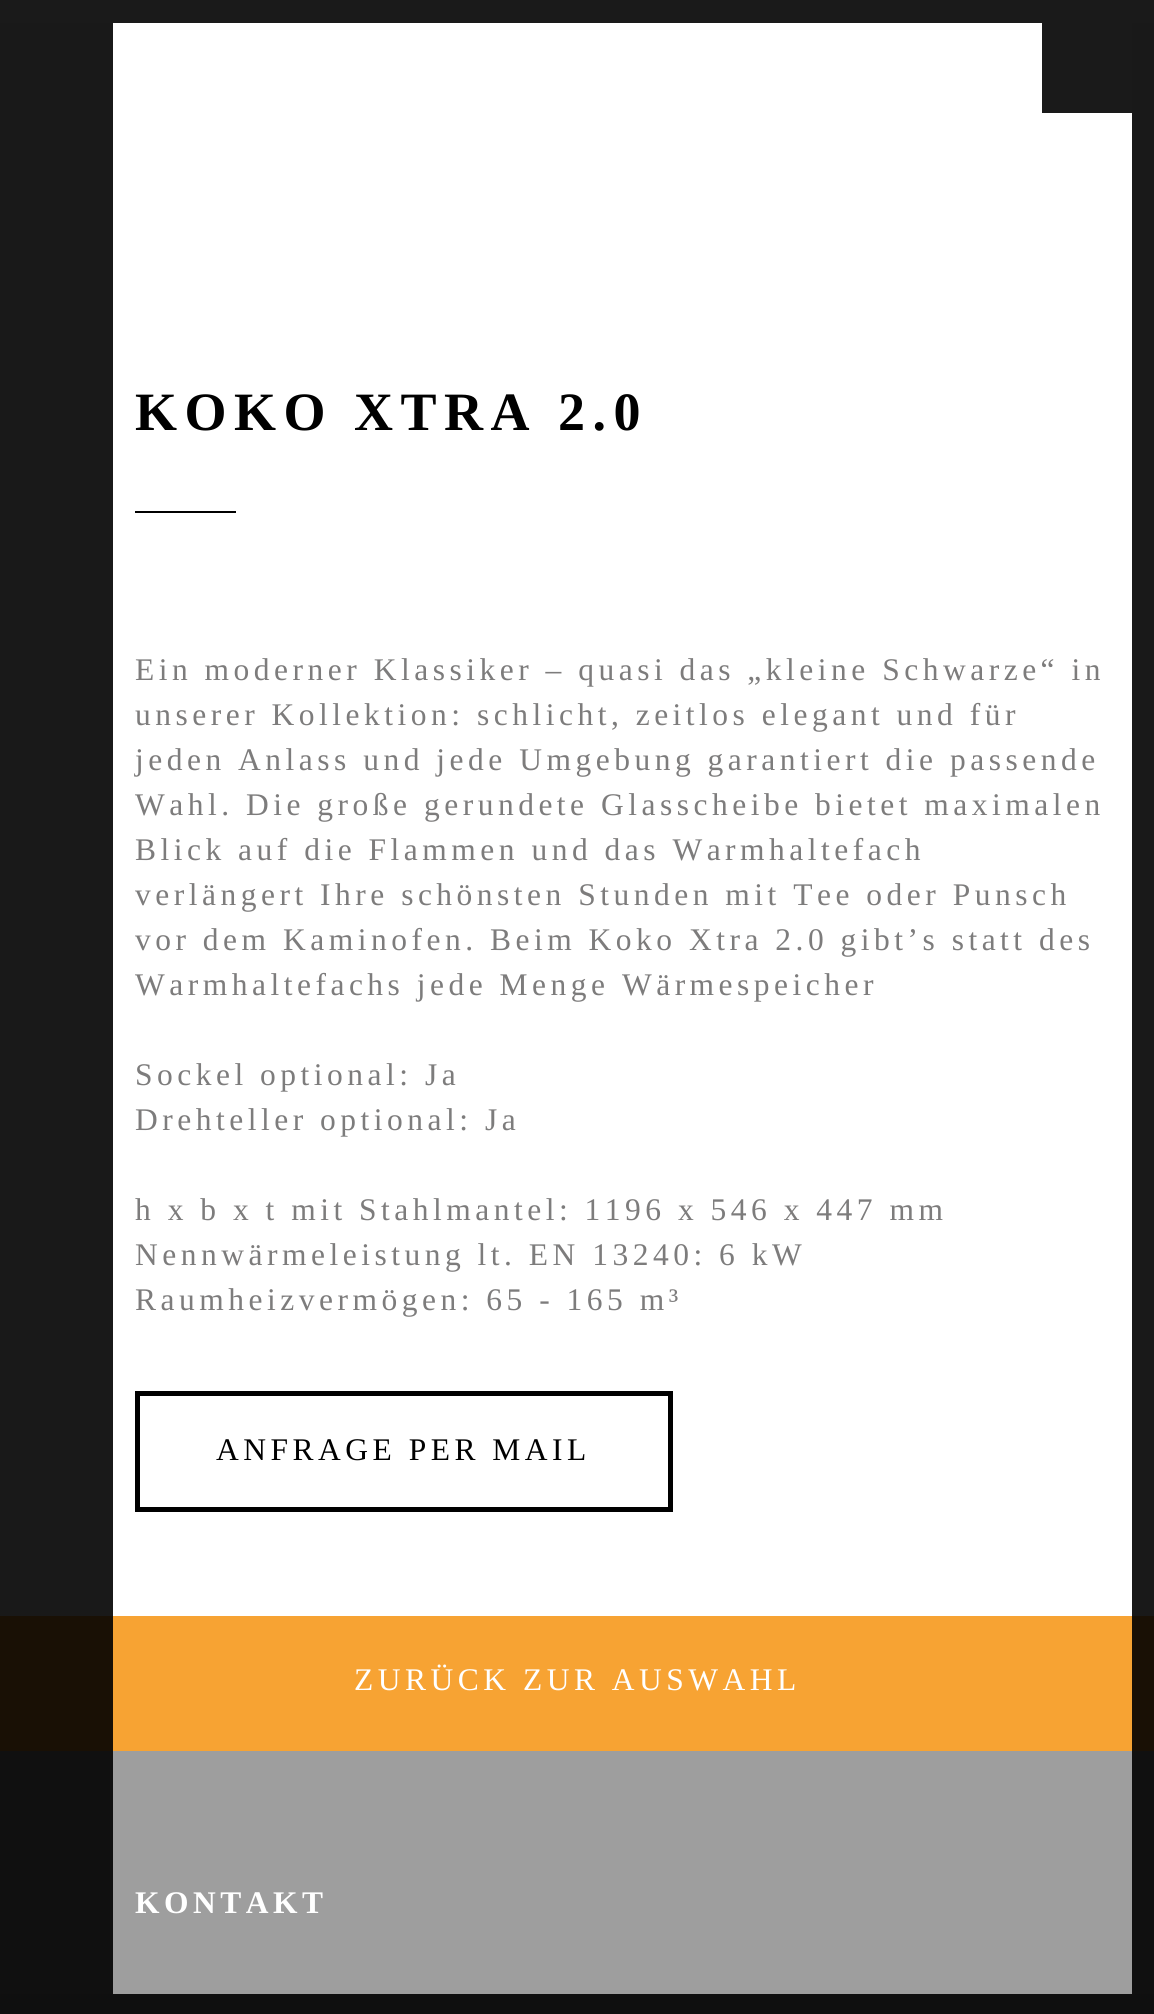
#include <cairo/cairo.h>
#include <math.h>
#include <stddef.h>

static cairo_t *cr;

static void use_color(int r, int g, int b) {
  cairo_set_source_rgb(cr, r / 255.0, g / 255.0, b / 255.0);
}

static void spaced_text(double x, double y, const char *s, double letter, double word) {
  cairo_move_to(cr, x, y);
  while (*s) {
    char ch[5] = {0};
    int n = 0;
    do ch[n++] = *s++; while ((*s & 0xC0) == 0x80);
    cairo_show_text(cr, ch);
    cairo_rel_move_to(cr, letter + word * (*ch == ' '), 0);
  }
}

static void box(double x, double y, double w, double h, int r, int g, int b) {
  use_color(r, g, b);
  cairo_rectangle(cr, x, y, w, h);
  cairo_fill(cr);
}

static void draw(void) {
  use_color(255, 255, 255);
  cairo_paint(cr);
  box(0, 23, 113, 1593, 25, 25, 25);
  box(1132, 23, 22, 1593, 25, 25, 25);
  box(0, 0, 1154, 23, 26, 26, 26);
  box(1042, 23, 90, 90, 26, 26, 26);
  box(135, 511, 101, 2, 0, 0, 0);
  cairo_rectangle(cr, 137.5, 1393.5, 533, 116);
  cairo_set_line_width(cr, 5);
  cairo_stroke(cr);
  box(113, 1616, 1019, 135, 247, 163, 51);
  box(0, 1616, 113, 135, 25, 16, 5);
  box(1132, 1616, 22, 135, 25, 16, 5);
  box(0, 1751, 1154, 263, 158, 158, 158);
  box(0, 1751, 113, 243, 16, 16, 16);
  box(1132, 1751, 22, 243, 16, 16, 16);
  cairo_set_source_rgba(cr, 0, 0, 0, 0.9);
  cairo_rectangle(cr, 0, 1994, 1154, 20);
  cairo_fill(cr);
  cairo_select_font_face(cr, "Liberation Serif", CAIRO_FONT_SLANT_NORMAL, CAIRO_FONT_WEIGHT_BOLD);
  cairo_set_font_size(cr, 54);
  use_color(0, 0, 0);
  spaced_text(135, 430, "KOKO XTRA 2.0", 7.5, 0);
  cairo_select_font_face(cr, "Liberation Serif", CAIRO_FONT_SLANT_NORMAL, CAIRO_FONT_WEIGHT_NORMAL);
  cairo_set_font_size(cr, 31.5);
  use_color(125, 124, 124);
  spaced_text(135, 680, "Ein moderner Klassiker – quasi das „kleine Schwarze“ in", 4.5, 0);
  spaced_text(135, 725, "unserer Kollektion: schlicht, zeitlos elegant und für", 4.5, 0);
  spaced_text(135, 770, "jeden Anlass und jede Umgebung garantiert die passende", 4.5, 0);
  spaced_text(135, 815, "Wahl. Die große gerundete Glasscheibe bietet maximalen", 4.5, 0);
  spaced_text(135, 860, "Blick auf die Flammen und das Warmhaltefach", 4.5, 0);
  spaced_text(135, 905, "verlängert Ihre schönsten Stunden mit Tee oder Punsch", 4.5, 0);
  spaced_text(135, 950, "vor dem Kaminofen. Beim Koko Xtra 2.0 gibt’s statt des", 4.5, 0);
  spaced_text(135, 995, "Warmhaltefachs jede Menge Wärmespeicher", 4.5, 0);
  spaced_text(135, 1085, "Sockel optional: Ja", 4.5, 0);
  spaced_text(135, 1130, "Drehteller optional: Ja", 4.5, 0);
  spaced_text(135, 1220, "h x b x t mit Stahlmantel: 1196 x 546 x 447 mm", 4.5, 0);
  spaced_text(135, 1265, "Nennwärmeleistung lt. EN 13240: 6 kW", 4.5, 0);
  spaced_text(135, 1310, "Raumheizvermögen: 65 - 165 m³", 4.5, 0);
  use_color(0, 0, 0);
  spaced_text(216, 1460, "ANFRAGE PER MAIL", 4.5, 0);
  use_color(255, 255, 255);
  spaced_text(354, 1690, "ZURÜCK ZUR AUSWAHL", 4.5, 0);
  cairo_select_font_face(cr, "Liberation Serif", CAIRO_FONT_SLANT_NORMAL, CAIRO_FONT_WEIGHT_BOLD);
  spaced_text(135, 1913, "KONTAKT", 4.5, 0);
}

int main(void) {
  cairo_surface_t *surface = cairo_image_surface_create(CAIRO_FORMAT_RGB24, 1154, 2014);
  cr = cairo_create(surface);
  cairo_font_options_t *options = cairo_font_options_create();
  cairo_font_options_set_hint_metrics(options, CAIRO_HINT_METRICS_OFF);
  cairo_font_options_set_hint_style(options, CAIRO_HINT_STYLE_NONE);
  cairo_set_font_options(cr, options);
  cairo_set_miter_limit(cr, 4);
  draw();
  cairo_surface_write_to_png(surface, "out.png");
  cairo_font_options_destroy(options);
  cairo_destroy(cr);
  cairo_surface_destroy(surface);
  return 0;
}
